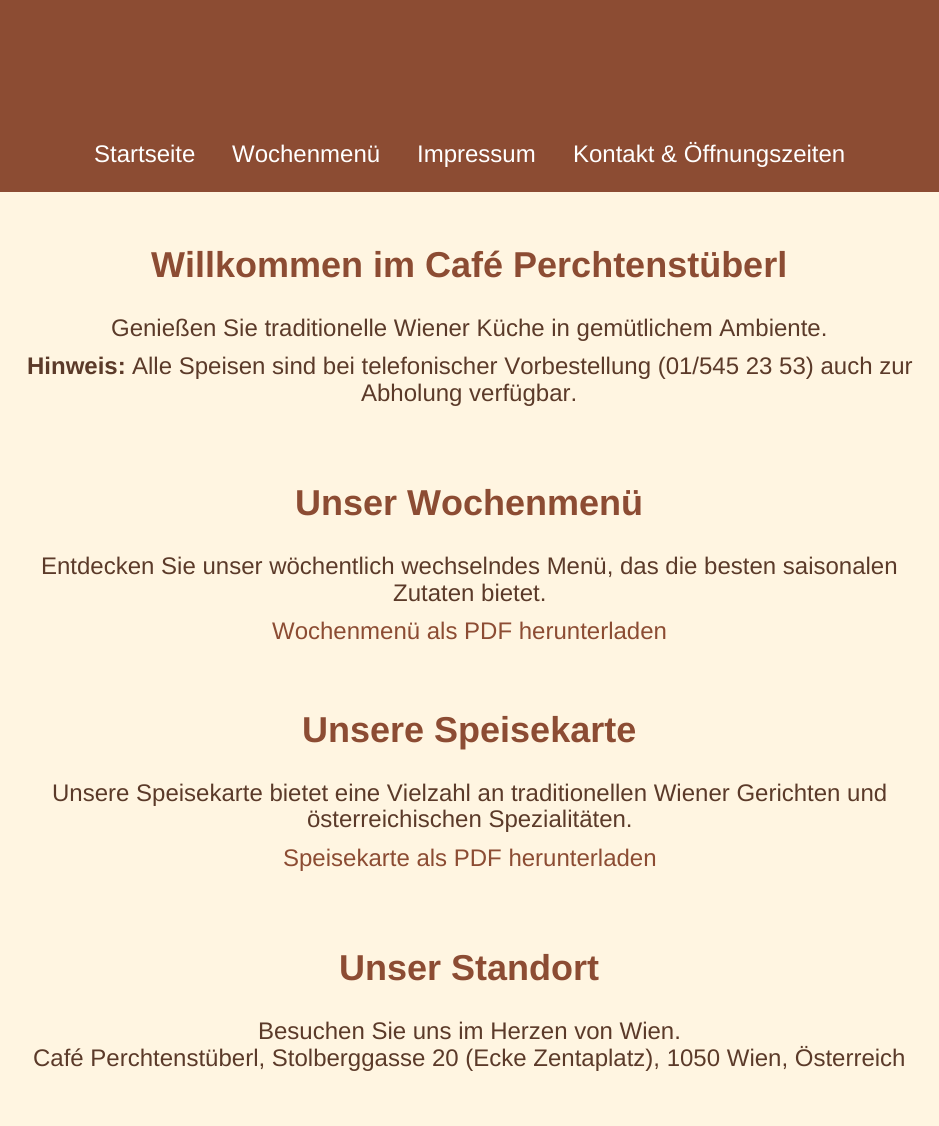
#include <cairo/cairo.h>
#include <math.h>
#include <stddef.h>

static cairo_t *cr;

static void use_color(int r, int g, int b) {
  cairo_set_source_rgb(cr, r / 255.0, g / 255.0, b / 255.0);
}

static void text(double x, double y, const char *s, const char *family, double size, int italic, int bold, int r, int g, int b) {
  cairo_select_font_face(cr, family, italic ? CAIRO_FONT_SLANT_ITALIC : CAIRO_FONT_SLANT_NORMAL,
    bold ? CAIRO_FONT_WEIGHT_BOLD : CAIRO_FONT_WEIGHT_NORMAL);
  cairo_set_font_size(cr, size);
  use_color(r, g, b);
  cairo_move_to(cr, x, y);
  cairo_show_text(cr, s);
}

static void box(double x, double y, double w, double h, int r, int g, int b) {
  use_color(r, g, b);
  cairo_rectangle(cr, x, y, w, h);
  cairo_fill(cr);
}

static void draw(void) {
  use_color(255, 245, 225);
  cairo_paint(cr);
  box(0, 0, 939, 192, 140, 76, 51);
  text(94, 162, "Startseite", "Liberation Sans", 24, 0, 0, 255, 255, 255);
  text(232, 162, "Wochenmenü", "Liberation Sans", 24, 0, 0, 255, 255, 255);
  text(417, 162, "Impressum", "Liberation Sans", 24, 0, 0, 255, 255, 255);
  text(573, 162, "Kontakt & Öffnungszeiten", "Liberation Sans", 24, 0, 0, 255, 255, 255);
  text(151, 277, "Willkommen im Café Perchtenstüberl", "Liberation Sans", 36, 0, 1, 140, 76, 51);
  text(111, 336, "Genießen Sie traditionelle Wiener Küche in gemütlichem Ambiente.", "Liberation Sans", 24, 0, 0, 91, 58, 41);
  text(27, 374, "Hinweis:", "Liberation Sans", 24, 0, 1, 91, 58, 41);
  text(132, 374, "Alle Speisen sind bei telefonischer Vorbestellung (01/545 23 53) auch zur", "Liberation Sans", 24, 0, 0, 91, 58, 41);
  text(361, 401, "Abholung verfügbar.", "Liberation Sans", 24, 0, 0, 91, 58, 41);
  text(295, 515, "Unser Wochenmenü", "Liberation Sans", 36, 0, 1, 140, 76, 51);
  text(41, 574, "Entdecken Sie unser wöchentlich wechselndes Menü, das die besten saisonalen", "Liberation Sans", 24, 0, 0, 91, 58, 41);
  text(393, 601, "Zutaten bietet.", "Liberation Sans", 24, 0, 0, 91, 58, 41);
  text(272, 639, "Wochenmenü als PDF herunterladen", "Liberation Sans", 24, 0, 0, 140, 76, 51);
  text(302, 742, "Unsere Speisekarte", "Liberation Sans", 36, 0, 1, 140, 76, 51);
  text(52, 801, "Unsere Speisekarte bietet eine Vielzahl an traditionellen Wiener Gerichten und", "Liberation Sans", 24, 0, 0, 91, 58, 41);
  text(307, 827, "österreichischen Spezialitäten.", "Liberation Sans", 24, 0, 0, 91, 58, 41);
  text(283, 866, "Speisekarte als PDF herunterladen", "Liberation Sans", 24, 0, 0, 140, 76, 51);
  text(339, 980, "Unser Standort", "Liberation Sans", 36, 0, 1, 140, 76, 51);
  text(258, 1039, "Besuchen Sie uns im Herzen von Wien.", "Liberation Sans", 24, 0, 0, 91, 58, 41);
  text(33, 1066, "Café Perchtenstüberl, Stolberggasse 20 (Ecke Zentaplatz), 1050 Wien, Österreich", "Liberation Sans", 24, 0, 0, 91, 58, 41);
}

int main(void) {
  cairo_surface_t *surface = cairo_image_surface_create(CAIRO_FORMAT_RGB24, 939, 1126);
  cr = cairo_create(surface);
  cairo_font_options_t *options = cairo_font_options_create();
  cairo_font_options_set_hint_metrics(options, CAIRO_HINT_METRICS_OFF);
  cairo_font_options_set_hint_style(options, CAIRO_HINT_STYLE_NONE);
  cairo_set_font_options(cr, options);
  cairo_set_miter_limit(cr, 4);
  draw();
  cairo_surface_write_to_png(surface, "out.png");
  cairo_font_options_destroy(options);
  cairo_destroy(cr);
  cairo_surface_destroy(surface);
  return 0;
}
